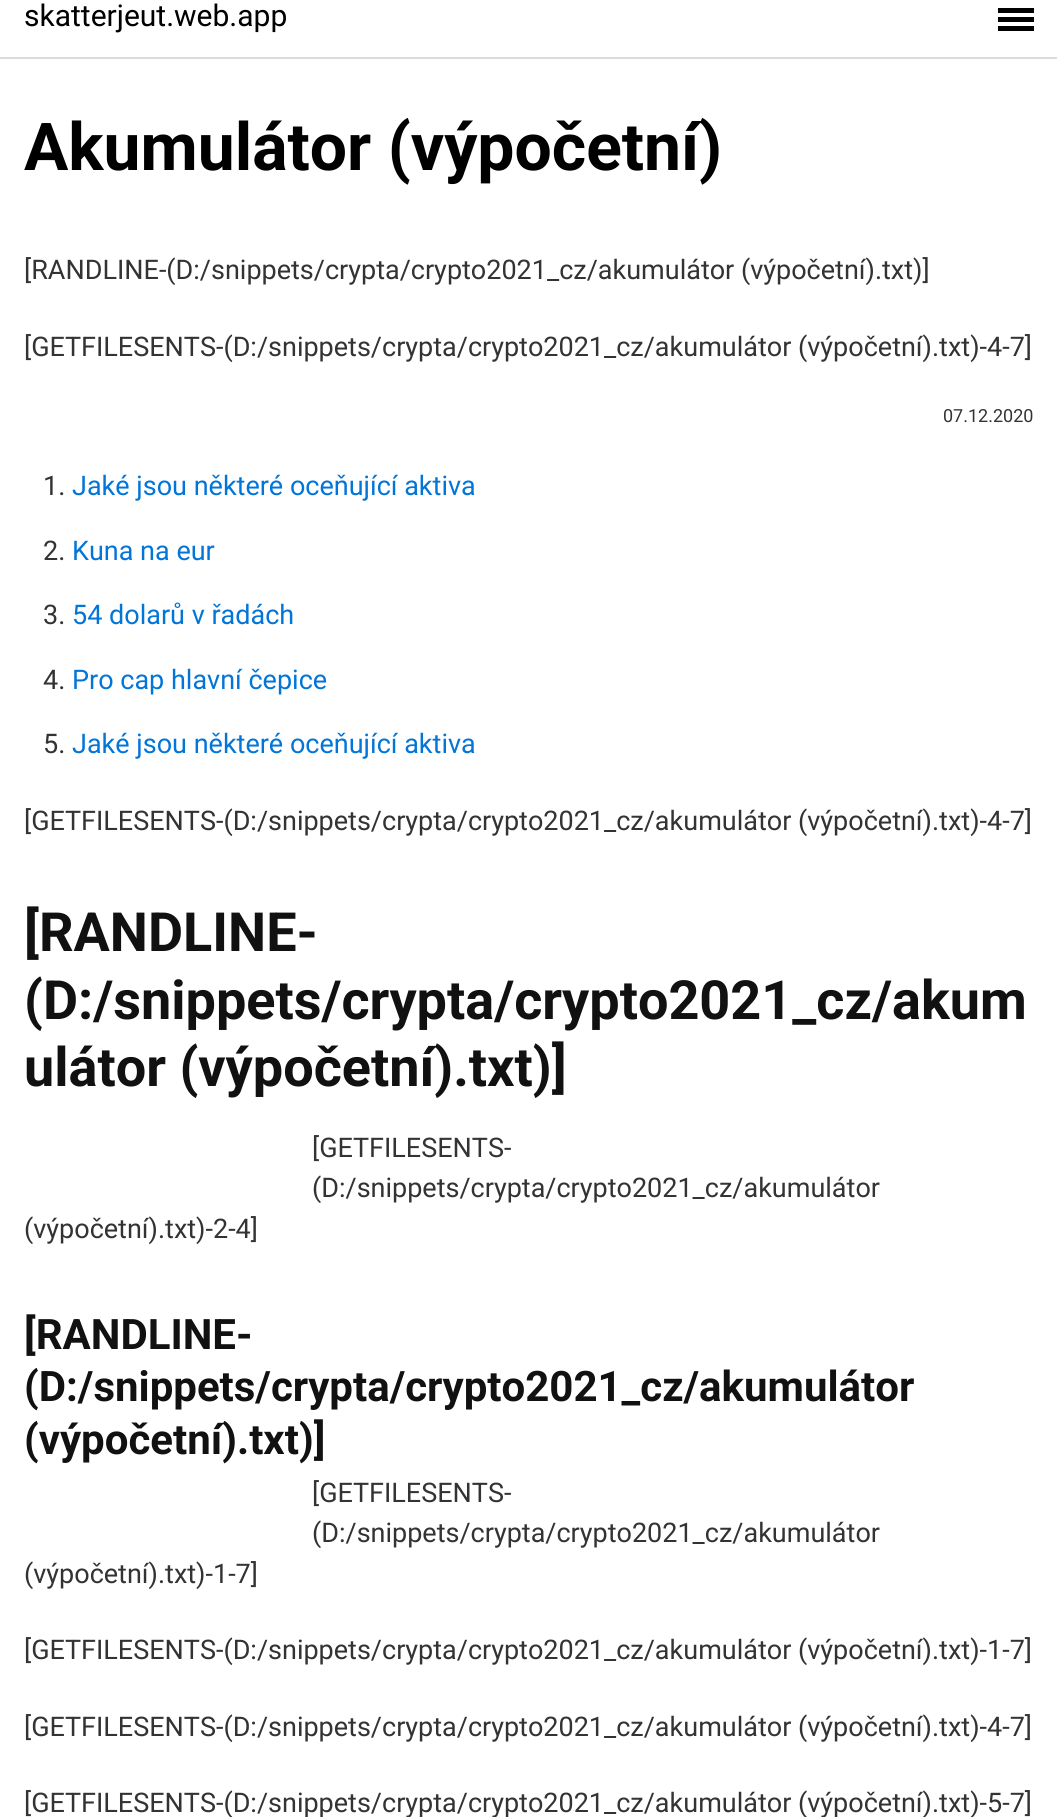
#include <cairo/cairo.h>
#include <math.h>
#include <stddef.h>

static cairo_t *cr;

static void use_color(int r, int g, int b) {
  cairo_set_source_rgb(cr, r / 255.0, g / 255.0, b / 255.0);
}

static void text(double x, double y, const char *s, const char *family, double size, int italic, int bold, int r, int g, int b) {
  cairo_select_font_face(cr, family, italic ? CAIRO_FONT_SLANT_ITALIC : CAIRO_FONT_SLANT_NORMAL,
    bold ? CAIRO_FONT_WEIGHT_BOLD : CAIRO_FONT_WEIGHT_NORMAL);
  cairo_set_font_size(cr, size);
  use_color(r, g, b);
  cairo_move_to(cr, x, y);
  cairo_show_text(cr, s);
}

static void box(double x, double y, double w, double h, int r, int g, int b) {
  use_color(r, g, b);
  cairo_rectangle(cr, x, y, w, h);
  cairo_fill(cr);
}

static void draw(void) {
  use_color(255, 255, 255);
  cairo_paint(cr);
  box(0, 57, 1057, 2, 219, 219, 219);
  box(998, 17, 36, 5, 0, 0, 0);
  box(998, 8, 36, 5, 0, 0, 0);
  box(998, 26, 36, 5, 0, 0, 0);
  text(24, 26, "skatterjeut.web.app", "Roboto", 30, 0, 0, 0, 0, 0);
  text(24, 170, "Akumulátor (výpočetní)", "Roboto", 66, 0, 1, 0, 0, 0);
  text(24, 279, "[RANDLINE-(D:/snippets/crypta/crypto2021_cz/akumulátor (výpočetní).txt)]", "Roboto", 27, 0, 0, 51, 51, 51);
  text(24, 356, "[GETFILESENTS-(D:/snippets/crypta/crypto2021_cz/akumulátor (výpočetní).txt)-4-7]", "Roboto", 27, 0, 0, 51, 51, 51);
  text(943, 422, "07.12.2020", "Roboto", 18, 0, 0, 51, 51, 51);
  text(43, 495, "1.", "Roboto", 27, 0, 0, 51, 51, 51);
  text(72, 495, "Jaké jsou některé oceňující aktiva", "Roboto", 27, 0, 0, 2, 117, 216);
  text(43, 560, "2.", "Roboto", 27, 0, 0, 51, 51, 51);
  text(72, 560, "Kuna na eur", "Roboto", 27, 0, 0, 2, 117, 216);
  text(43, 624, "3.", "Roboto", 27, 0, 0, 51, 51, 51);
  text(72, 624, "54 dolarů v řadách", "Roboto", 27, 0, 0, 2, 117, 216);
  text(43, 689, "4.", "Roboto", 27, 0, 0, 51, 51, 51);
  text(72, 689, "Pro cap hlavní čepice", "Roboto", 27, 0, 0, 2, 117, 216);
  text(43, 753, "5.", "Roboto", 27, 0, 0, 51, 51, 51);
  text(72, 753, "Jaké jsou některé oceňující aktiva", "Roboto", 27, 0, 0, 2, 117, 216);
  text(24, 830, "[GETFILESENTS-(D:/snippets/crypta/crypto2021_cz/akumulátor (výpočetní).txt)-4-7]", "Roboto", 27, 0, 0, 51, 51, 51);
  text(24, 951, "[RANDLINE-", "Roboto", 54, 0, 1, 17, 17, 17);
  text(24, 1019, "(D:/snippets/crypta/crypto2021_cz/akum", "Roboto", 54, 0, 1, 17, 17, 17);
  text(24, 1086, "ulátor (výpočetní).txt)]", "Roboto", 54, 0, 1, 17, 17, 17);
  text(312, 1157, "[GETFILESENTS-", "Roboto", 27, 0, 0, 51, 51, 51);
  text(312, 1197, "(D:/snippets/crypta/crypto2021_cz/akumulátor", "Roboto", 27, 0, 0, 51, 51, 51);
  text(24, 1238, "(výpočetní).txt)-2-4]", "Roboto", 27, 0, 0, 51, 51, 51);
  text(24, 1349, "[RANDLINE-", "Roboto", 42, 0, 1, 17, 17, 17);
  text(24, 1401, "(D:/snippets/crypta/crypto2021_cz/akumulátor", "Roboto", 42, 0, 1, 17, 17, 17);
  text(24, 1454, "(výpočetní).txt)]", "Roboto", 42, 0, 1, 17, 17, 17);
  text(312, 1502, "[GETFILESENTS-", "Roboto", 27, 0, 0, 51, 51, 51);
  text(312, 1542, "(D:/snippets/crypta/crypto2021_cz/akumulátor", "Roboto", 27, 0, 0, 51, 51, 51);
  text(24, 1583, "(výpočetní).txt)-1-7]", "Roboto", 27, 0, 0, 51, 51, 51);
  text(24, 1659, "[GETFILESENTS-(D:/snippets/crypta/crypto2021_cz/akumulátor (výpočetní).txt)-1-7]", "Roboto", 27, 0, 0, 51, 51, 51);
  text(24, 1736, "[GETFILESENTS-(D:/snippets/crypta/crypto2021_cz/akumulátor (výpočetní).txt)-4-7]", "Roboto", 27, 0, 0, 51, 51, 51);
  text(24, 1812, "[GETFILESENTS-(D:/snippets/crypta/crypto2021_cz/akumulátor (výpočetní).txt)-5-7]", "Roboto", 27, 0, 0, 51, 51, 51);
}

int main(void) {
  cairo_surface_t *surface = cairo_image_surface_create(CAIRO_FORMAT_RGB24, 1057, 1817);
  cr = cairo_create(surface);
  cairo_font_options_t *options = cairo_font_options_create();
  cairo_font_options_set_hint_metrics(options, CAIRO_HINT_METRICS_OFF);
  cairo_font_options_set_hint_style(options, CAIRO_HINT_STYLE_NONE);
  cairo_set_font_options(cr, options);
  cairo_set_miter_limit(cr, 4);
  draw();
  cairo_surface_write_to_png(surface, "out.png");
  cairo_font_options_destroy(options);
  cairo_destroy(cr);
  cairo_surface_destroy(surface);
  return 0;
}
